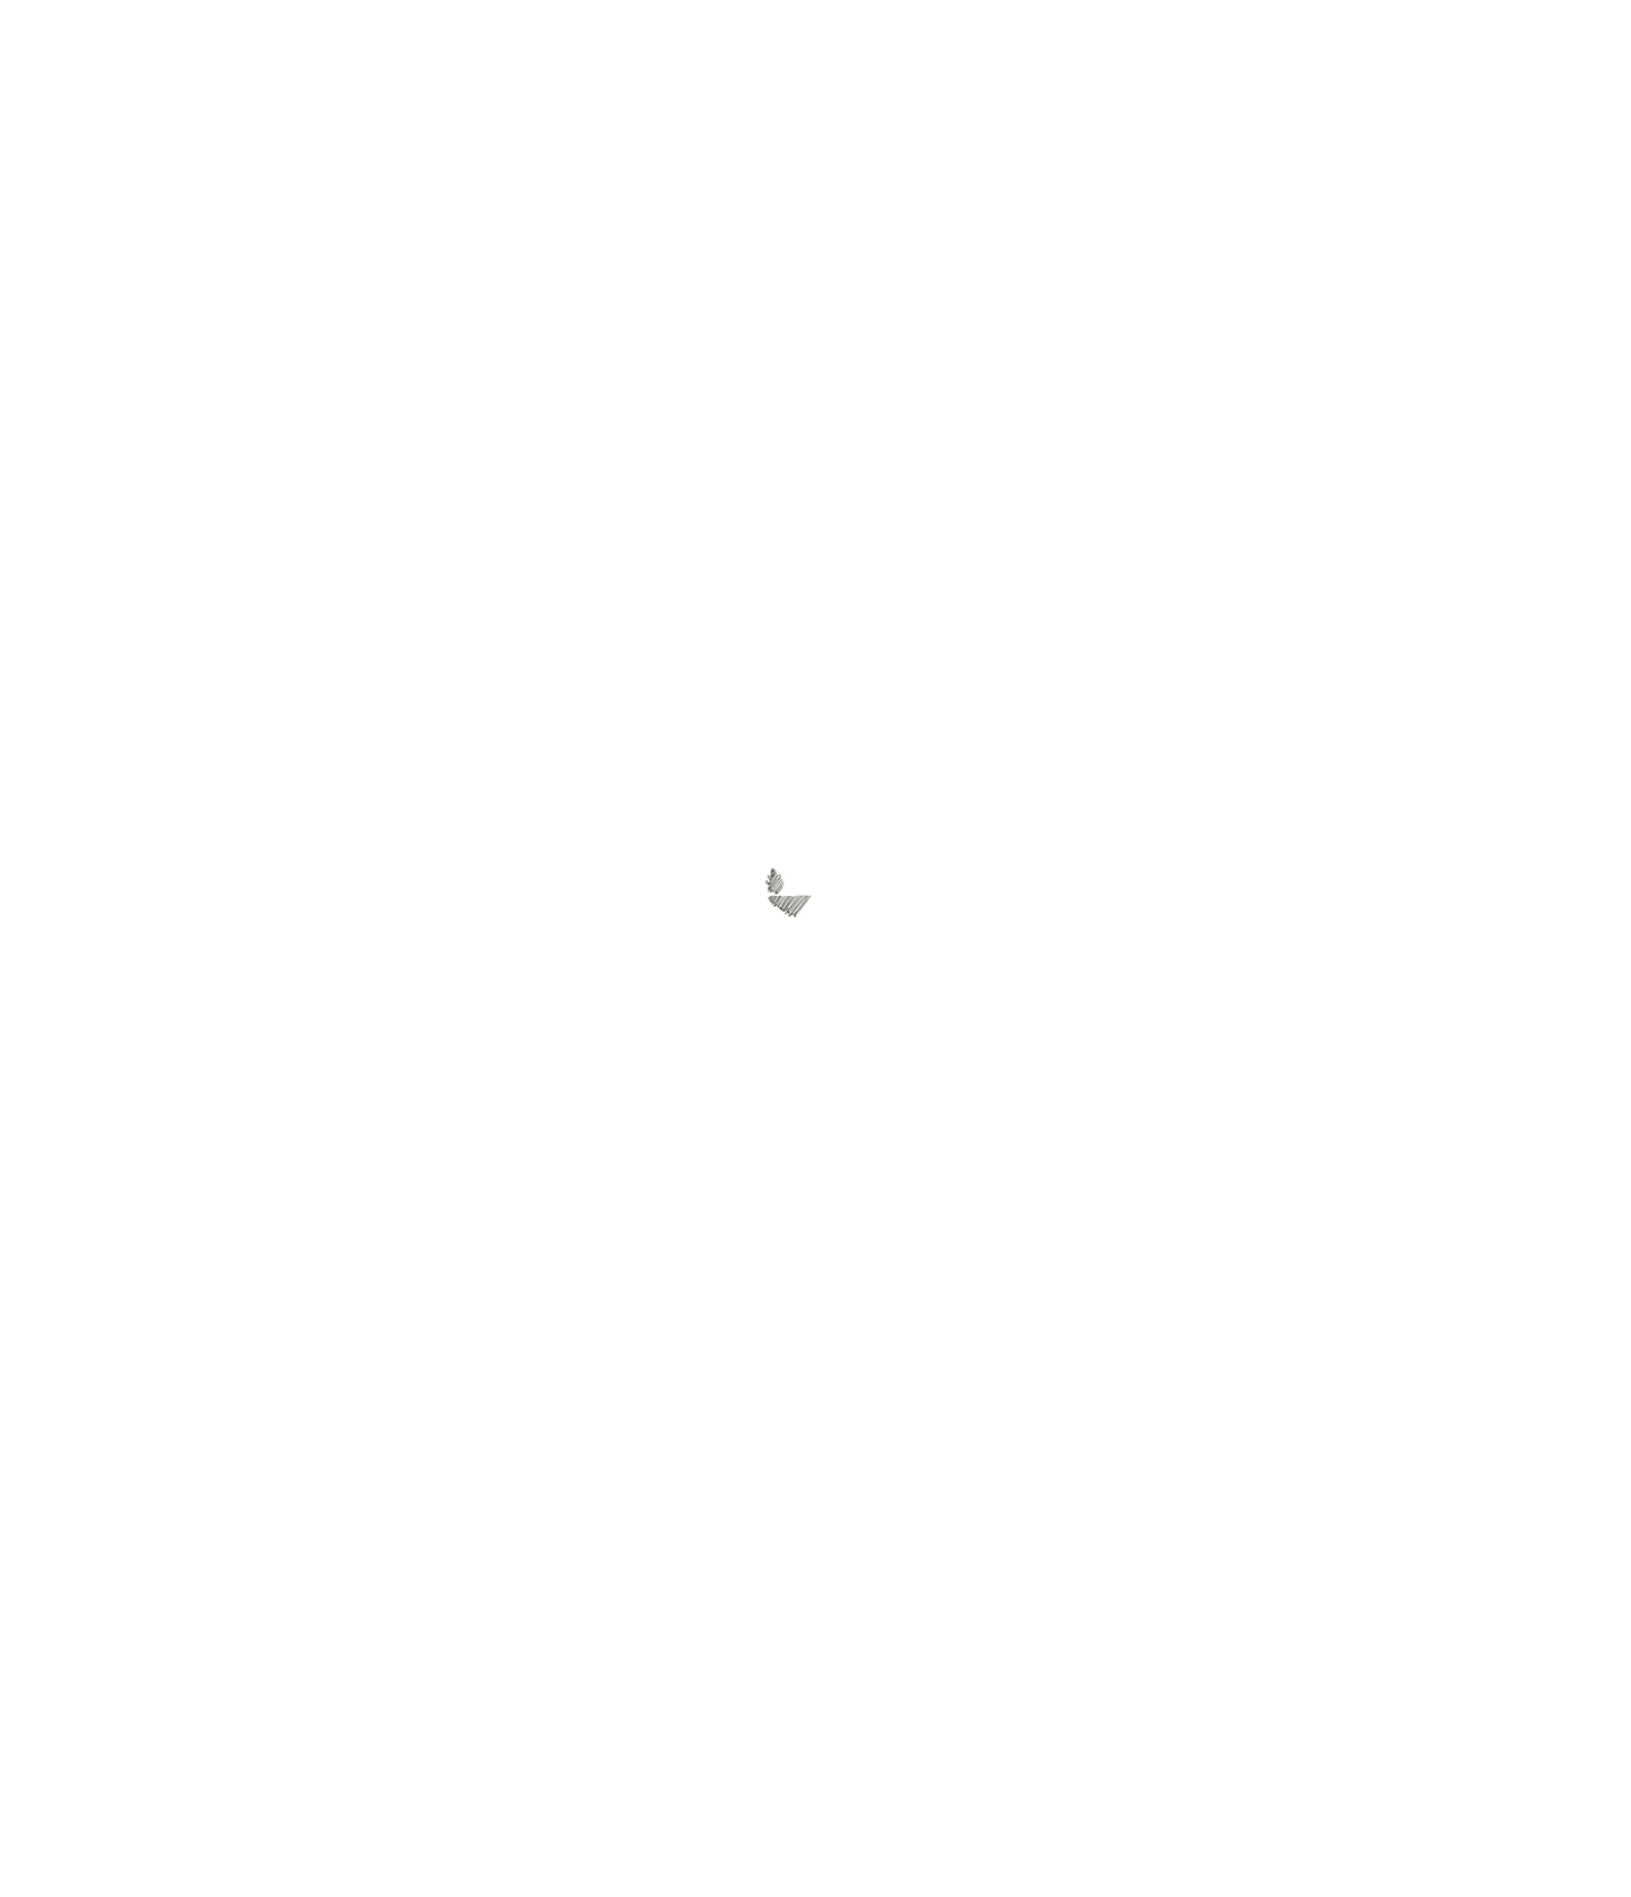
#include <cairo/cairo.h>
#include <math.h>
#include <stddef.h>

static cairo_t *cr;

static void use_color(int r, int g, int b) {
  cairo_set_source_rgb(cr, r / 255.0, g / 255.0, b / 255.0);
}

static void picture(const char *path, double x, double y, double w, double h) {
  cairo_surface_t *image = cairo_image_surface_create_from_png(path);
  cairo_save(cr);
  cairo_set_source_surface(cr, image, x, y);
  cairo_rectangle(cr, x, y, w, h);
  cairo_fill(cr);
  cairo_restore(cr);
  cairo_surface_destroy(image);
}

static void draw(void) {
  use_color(255, 255, 255);
  cairo_paint(cr);
  picture("img_01.png", 764, 867, 48, 51);
}

int main(void) {
  cairo_surface_t *surface = cairo_image_surface_create(CAIRO_FORMAT_RGB24, 1631, 1897);
  cr = cairo_create(surface);
  cairo_font_options_t *options = cairo_font_options_create();
  cairo_font_options_set_hint_metrics(options, CAIRO_HINT_METRICS_OFF);
  cairo_font_options_set_hint_style(options, CAIRO_HINT_STYLE_NONE);
  cairo_set_font_options(cr, options);
  cairo_set_miter_limit(cr, 4);
  draw();
  cairo_surface_write_to_png(surface, "out.png");
  cairo_font_options_destroy(options);
  cairo_destroy(cr);
  cairo_surface_destroy(surface);
  return 0;
}
